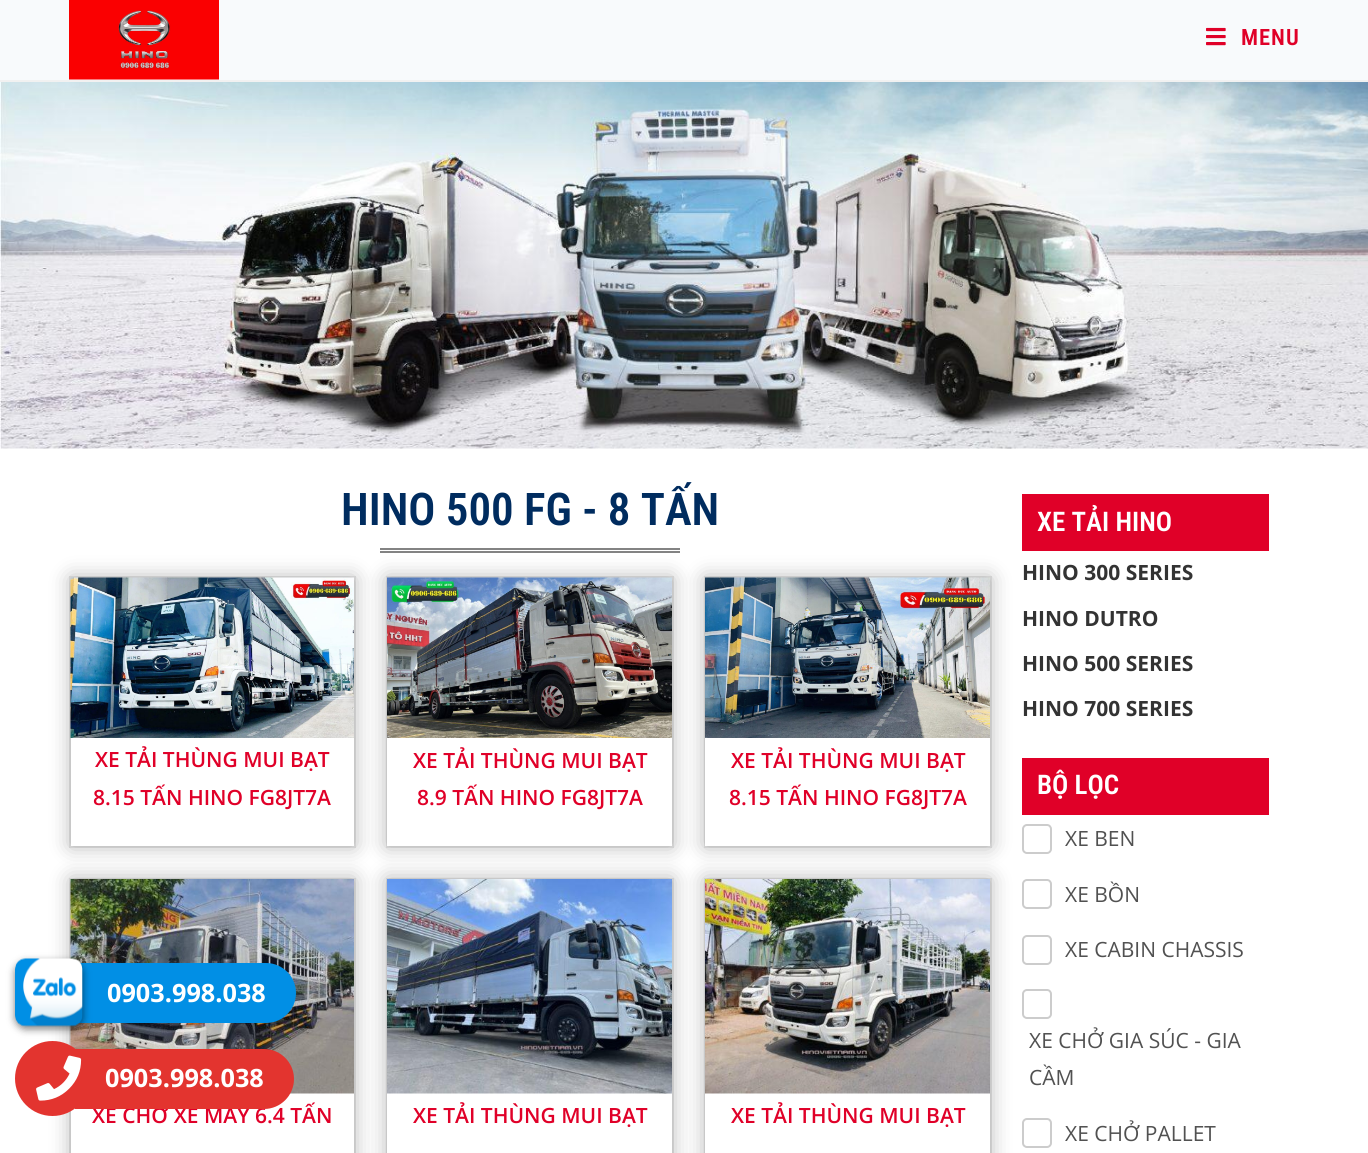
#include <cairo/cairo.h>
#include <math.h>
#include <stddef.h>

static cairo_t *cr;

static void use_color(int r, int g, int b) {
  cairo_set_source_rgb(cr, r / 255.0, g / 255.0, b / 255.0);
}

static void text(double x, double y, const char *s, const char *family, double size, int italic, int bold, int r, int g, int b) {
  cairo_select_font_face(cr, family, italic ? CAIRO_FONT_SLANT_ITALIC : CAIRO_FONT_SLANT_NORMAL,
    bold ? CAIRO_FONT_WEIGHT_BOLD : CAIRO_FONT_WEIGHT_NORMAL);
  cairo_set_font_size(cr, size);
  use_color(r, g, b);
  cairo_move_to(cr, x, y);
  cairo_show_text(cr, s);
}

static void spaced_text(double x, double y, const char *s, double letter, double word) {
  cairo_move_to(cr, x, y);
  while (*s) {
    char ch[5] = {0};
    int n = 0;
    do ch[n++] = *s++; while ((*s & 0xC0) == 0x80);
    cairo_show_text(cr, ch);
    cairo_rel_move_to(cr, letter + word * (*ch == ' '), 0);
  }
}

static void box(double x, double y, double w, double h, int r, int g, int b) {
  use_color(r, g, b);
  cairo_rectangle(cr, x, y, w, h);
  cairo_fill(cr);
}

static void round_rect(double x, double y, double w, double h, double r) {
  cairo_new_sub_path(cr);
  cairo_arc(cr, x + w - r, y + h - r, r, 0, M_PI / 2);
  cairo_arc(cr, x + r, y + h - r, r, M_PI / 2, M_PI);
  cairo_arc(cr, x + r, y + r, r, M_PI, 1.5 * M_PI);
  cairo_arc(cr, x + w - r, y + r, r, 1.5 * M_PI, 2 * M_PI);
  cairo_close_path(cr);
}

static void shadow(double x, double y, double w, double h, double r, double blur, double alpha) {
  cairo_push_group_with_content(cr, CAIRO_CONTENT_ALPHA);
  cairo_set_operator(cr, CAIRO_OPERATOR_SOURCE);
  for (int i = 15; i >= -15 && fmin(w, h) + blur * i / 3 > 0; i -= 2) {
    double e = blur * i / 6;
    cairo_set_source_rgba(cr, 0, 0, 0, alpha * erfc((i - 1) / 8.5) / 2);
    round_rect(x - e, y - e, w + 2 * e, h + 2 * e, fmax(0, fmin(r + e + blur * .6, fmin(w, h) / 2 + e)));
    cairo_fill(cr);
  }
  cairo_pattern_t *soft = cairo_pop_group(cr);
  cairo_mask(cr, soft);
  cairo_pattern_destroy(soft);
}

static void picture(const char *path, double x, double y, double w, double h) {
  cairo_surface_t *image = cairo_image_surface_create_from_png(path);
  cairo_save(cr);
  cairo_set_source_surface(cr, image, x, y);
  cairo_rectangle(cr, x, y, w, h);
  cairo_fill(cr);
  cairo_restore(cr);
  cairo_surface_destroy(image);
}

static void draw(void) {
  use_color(255, 255, 255);
  cairo_paint(cr);
  box(0, 0, 1368, 80, 248, 250, 252);
  box(0, 80, 1368, 2, 241, 241, 241);
  picture("img_01.png", 69, 0, 150, 80);
  picture("img_02.png", 1206, 27, 20, 19);
  picture("img_03.png", 0, 82, 1368, 367);
  box(380, 548, 300, 2, 131, 131, 131);
  box(380, 551, 300, 2, 131, 131, 131);
  cairo_rectangle(cr, 70, 577, 285, 270);
  use_color(235, 235, 235);
  cairo_stroke(cr);
  cairo_save(cr);
  cairo_set_fill_rule(cr, CAIRO_FILL_RULE_EVEN_ODD);
  cairo_new_path(cr);
  cairo_move_to(cr, 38, 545);
  cairo_line_to(cr, 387, 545);
  cairo_line_to(cr, 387, 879);
  cairo_line_to(cr, 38, 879);
  cairo_close_path(cr);
  cairo_move_to(cr, 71, 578);
  cairo_line_to(cr, 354, 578);
  cairo_line_to(cr, 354, 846);
  cairo_line_to(cr, 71, 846);
  cairo_close_path(cr);
  cairo_clip(cr);
  use_color(0, 0, 0);
  shadow(71, 578, 283, 268, 0, 10.5, 0.3);
  cairo_restore(cr);
  picture("img_04.png", 70, 577, 284, 161);
  cairo_rectangle(cr, 387, 577, 286, 270);
  cairo_stroke(cr);
  use_color(0, 0, 0);
  shadow(387, 578, 285, 268, 0, 10.5, 0.3);
  box(387, 738, 285, 108, 255, 255, 255);
  picture("img_05.png", 387, 577, 285, 161);
  cairo_rectangle(cr, 705, 577, 286, 270);
  use_color(235, 235, 235);
  cairo_stroke(cr);
  use_color(0, 0, 0);
  shadow(705, 578, 285, 268, 0, 10.5, 0.3);
  box(705, 738, 285, 108, 255, 255, 255);
  picture("img_06.png", 705, 577, 285, 161);
  cairo_rectangle(cr, 70, 879, 285, 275);
  use_color(235, 235, 235);
  cairo_stroke(cr);
  use_color(0, 0, 0);
  shadow(71, 879, 283, 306, 0, 10.5, 0.3);
  box(71, 1093, 283, 60, 255, 255, 255);
  picture("img_07.png", 70, 879, 284, 215);
  cairo_rectangle(cr, 387, 879, 286, 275);
  use_color(235, 235, 235);
  cairo_stroke(cr);
  use_color(0, 0, 0);
  shadow(387, 879, 285, 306, 0, 10.5, 0.3);
  box(387, 1093, 285, 60, 255, 255, 255);
  picture("img_08.png", 387, 879, 285, 215);
  cairo_rectangle(cr, 705, 879, 286, 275);
  use_color(235, 235, 235);
  cairo_stroke(cr);
  use_color(0, 0, 0);
  shadow(705, 879, 285, 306, 0, 10.5, 0.3);
  box(705, 1093, 285, 60, 255, 255, 255);
  picture("img_09.png", 705, 879, 285, 215);
  box(1022, 494, 247, 57, 224, 0, 40);
  box(1022, 758, 247, 57, 224, 0, 40);
  round_rect(1023, 825, 28, 28, 4);
  use_color(204, 204, 204);
  cairo_stroke(cr);
  round_rect(1023, 880, 28, 28, 4);
  cairo_stroke(cr);
  round_rect(1023, 936, 28, 28, 4);
  cairo_stroke(cr);
  round_rect(1023, 990, 28, 28, 4);
  cairo_stroke(cr);
  round_rect(1023, 1119, 28, 28, 4);
  cairo_stroke(cr);
  use_color(1, 143, 229);
  cairo_new_path(cr);
  cairo_move_to(cr, 77, 963);
  cairo_line_to(cr, 266, 963);
  cairo_curve_to(cr, 282.5, 963, 296, 976.5, 296, 993);
  cairo_curve_to(cr, 296, 1009.5, 282.5, 1023, 266, 1023);
  cairo_line_to(cr, 77, 1023);
  cairo_close_path(cr);
  cairo_fill(cr);
  cairo_select_font_face(cr, "Roboto Condensed SemiBold", CAIRO_FONT_SLANT_NORMAL, CAIRO_FONT_WEIGHT_NORMAL);
  cairo_set_font_size(cr, 22.5);
  use_color(224, 0, 40);
  spaced_text(1241, 45, "MENU", 1, 0);
  text(341, 525, "HINO 500 FG - 8 TẤN", "Roboto Condensed SemiBold", 45, 0, 0, 0, 44, 95);
  text(95, 767, "XE TẢI THÙNG MUI BẠT", "Open Sans SemiBold", 21, 0, 0, 224, 0, 40);
  text(93, 805, "8.15 TẤN HINO FG8JT7A", "Open Sans SemiBold", 21, 0, 0, 224, 0, 40);
  text(413, 768, "XE TẢI THÙNG MUI BẠT", "Open Sans SemiBold", 21, 0, 0, 224, 0, 40);
  text(417, 805, "8.9 TẤN HINO FG8JT7A", "Open Sans SemiBold", 21, 0, 0, 224, 0, 40);
  text(731, 768, "XE TẢI THÙNG MUI BẠT", "Open Sans SemiBold", 21, 0, 0, 224, 0, 40);
  text(729, 805, "8.15 TẤN HINO FG8JT7A", "Open Sans SemiBold", 21, 0, 0, 224, 0, 40);
  text(92, 1123, "XE CHỞ XE MÁY 6.4 TẤN", "Open Sans SemiBold", 21, 0, 0, 224, 0, 40);
  text(413, 1123, "XE TẢI THÙNG MUI BẠT", "Open Sans SemiBold", 21, 0, 0, 224, 0, 40);
  text(731, 1123, "XE TẢI THÙNG MUI BẠT", "Open Sans SemiBold", 21, 0, 0, 224, 0, 40);
  text(1037, 531, "XE TẢI HINO", "Roboto Condensed SemiBold", 27, 0, 0, 255, 255, 255);
  text(1022, 580, "HINO 300 SERIES", "Open Sans", 21, 0, 1, 51, 51, 51);
  text(1022, 626, "HINO DUTRO", "Open Sans", 21, 0, 1, 51, 51, 51);
  text(1022, 671, "HINO 500 SERIES", "Open Sans", 21, 0, 1, 51, 51, 51);
  text(1022, 716, "HINO 700 SERIES", "Open Sans", 21, 0, 1, 51, 51, 51);
  text(1037, 794, "BỘ LỌC", "Roboto Condensed SemiBold", 27, 0, 0, 255, 255, 255);
  text(1065, 846, "XE BEN", "Open Sans", 21, 0, 0, 81, 81, 81);
  text(1065, 902, "XE BỒN", "Open Sans", 21, 0, 0, 81, 81, 81);
  text(1065, 957, "XE CABIN CHASSIS", "Open Sans", 21, 0, 0, 81, 81, 81);
  text(1029, 1048, "XE CHỞ GIA SÚC - GIA", "Open Sans", 21, 0, 0, 81, 81, 81);
  text(1029, 1085, "CẦM", "Open Sans", 21, 0, 0, 81, 81, 81);
  text(1065, 1141, "XE CHỞ PALLET", "Open Sans", 21, 0, 0, 81, 81, 81);
  text(107, 1002, "0903.998.038", "Open Sans", 25.25, 0, 1, 255, 255, 255);
  use_color(227, 52, 47);
  cairo_new_path(cr);
  cairo_move_to(cr, 75, 1049);
  cairo_line_to(cr, 264, 1049);
  cairo_curve_to(cr, 280.5, 1049, 294, 1062.5, 294, 1079);
  cairo_curve_to(cr, 294, 1095.5, 280.5, 1109, 264, 1109);
  cairo_line_to(cr, 75, 1109);
  cairo_close_path(cr);
  cairo_fill(cr);
  cairo_arc(cr, 52.5, 1078.5, 37.5, 0, 2 * M_PI);
  cairo_fill(cr);
  use_color(0, 0, 0);
  shadow(15, 962, 68, 67, 11, 4, 0.5);
  picture("img_10.png", 15, 958, 68, 69);
  picture("img_11.png", 36, 1055, 46, 46);
  text(105, 1087, "0903.998.038", "Open Sans", 25.25, 0, 1, 255, 255, 255);
}

int main(void) {
  cairo_surface_t *surface = cairo_image_surface_create(CAIRO_FORMAT_RGB24, 1368, 1153);
  cr = cairo_create(surface);
  cairo_font_options_t *options = cairo_font_options_create();
  cairo_font_options_set_hint_metrics(options, CAIRO_HINT_METRICS_OFF);
  cairo_font_options_set_hint_style(options, CAIRO_HINT_STYLE_NONE);
  cairo_set_font_options(cr, options);
  cairo_set_miter_limit(cr, 4);
  draw();
  cairo_surface_write_to_png(surface, "out.png");
  cairo_font_options_destroy(options);
  cairo_destroy(cr);
  cairo_surface_destroy(surface);
  return 0;
}
